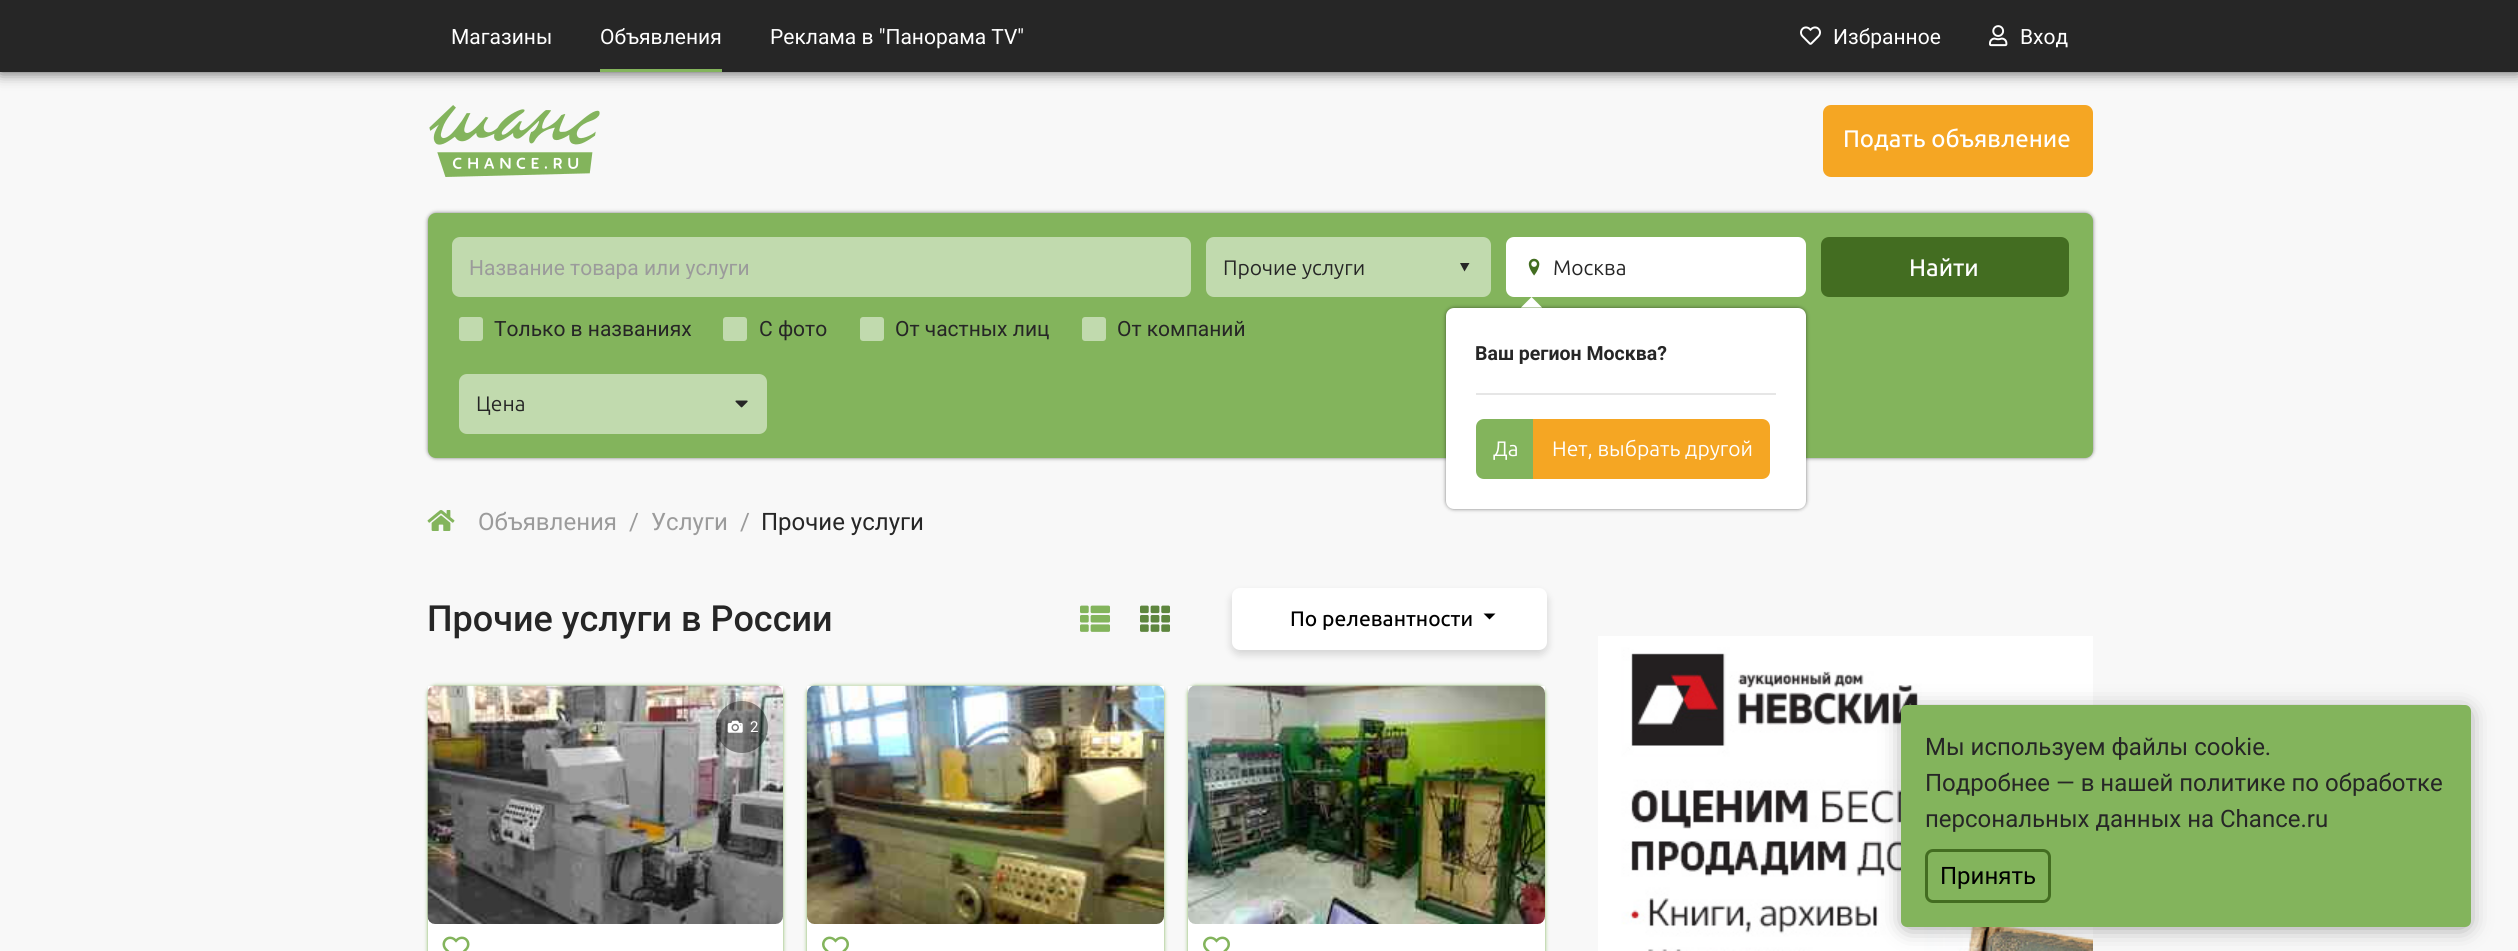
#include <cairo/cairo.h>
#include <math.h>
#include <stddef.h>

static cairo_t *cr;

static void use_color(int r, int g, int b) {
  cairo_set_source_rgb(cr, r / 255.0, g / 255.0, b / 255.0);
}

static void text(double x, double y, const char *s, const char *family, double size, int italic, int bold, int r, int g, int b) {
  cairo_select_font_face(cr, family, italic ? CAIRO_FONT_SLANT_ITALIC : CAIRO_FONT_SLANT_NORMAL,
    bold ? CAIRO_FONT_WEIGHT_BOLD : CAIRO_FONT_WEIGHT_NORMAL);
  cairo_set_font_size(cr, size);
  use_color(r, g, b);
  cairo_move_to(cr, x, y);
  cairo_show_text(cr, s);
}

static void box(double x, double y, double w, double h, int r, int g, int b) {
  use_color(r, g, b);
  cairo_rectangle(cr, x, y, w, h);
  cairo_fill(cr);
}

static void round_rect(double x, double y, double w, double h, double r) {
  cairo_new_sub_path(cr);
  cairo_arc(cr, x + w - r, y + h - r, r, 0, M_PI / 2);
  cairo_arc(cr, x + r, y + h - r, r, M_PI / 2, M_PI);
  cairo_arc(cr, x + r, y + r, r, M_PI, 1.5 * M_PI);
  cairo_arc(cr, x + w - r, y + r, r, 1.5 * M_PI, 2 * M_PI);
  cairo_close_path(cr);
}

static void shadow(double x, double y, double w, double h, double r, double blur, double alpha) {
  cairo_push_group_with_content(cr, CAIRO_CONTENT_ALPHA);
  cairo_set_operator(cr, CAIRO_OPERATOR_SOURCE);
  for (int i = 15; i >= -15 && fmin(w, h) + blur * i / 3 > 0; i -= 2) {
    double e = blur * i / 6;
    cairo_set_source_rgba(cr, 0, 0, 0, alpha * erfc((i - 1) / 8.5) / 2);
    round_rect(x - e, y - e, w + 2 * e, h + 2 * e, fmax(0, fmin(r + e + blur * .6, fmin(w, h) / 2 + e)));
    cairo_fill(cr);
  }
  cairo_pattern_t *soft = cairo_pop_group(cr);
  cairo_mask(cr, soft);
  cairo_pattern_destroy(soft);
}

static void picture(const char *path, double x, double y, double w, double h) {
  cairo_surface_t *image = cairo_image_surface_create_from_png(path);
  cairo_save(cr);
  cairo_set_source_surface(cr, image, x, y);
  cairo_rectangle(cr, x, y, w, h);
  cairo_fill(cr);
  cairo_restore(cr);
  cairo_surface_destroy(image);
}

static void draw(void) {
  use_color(248, 248, 248);
  cairo_paint(cr);
  use_color(0, 0, 0);
  shadow(0, 0, 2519, 72, 0, 7.5, 0.7);
  box(0, 0, 2518, 72, 38, 38, 38);
  box(600, 69, 122, 3, 131, 180, 92);
  picture("img_01.png", 1800, 26, 21, 19);
  picture("img_02.png", 1989, 25, 19, 22);
  picture("img_03.png", 429, 105, 171, 72);
  use_color(245, 166, 35);
  round_rect(1824.5, 106.5, 267, 69, 6.5);
  cairo_fill_preserve(cr);
  cairo_set_line_width(cr, 3);
  cairo_stroke(cr);
  use_color(0, 0, 0);
  shadow(428, 213, 1665, 245, 8, 2, 0.5);
  use_color(131, 180, 92);
  round_rect(428, 213, 1665, 245, 8);
  cairo_fill(cr);
  use_color(193, 218, 174);
  round_rect(452, 237, 739, 60, 8);
  cairo_fill(cr);
  round_rect(1206, 237, 285, 60, 8);
  cairo_fill(cr);
  use_color(38, 38, 38);
  cairo_new_path(cr);
  cairo_move_to(cr, 1469.5, 263);
  cairo_line_to(cr, 1464.5, 271.5);
  cairo_line_to(cr, 1460, 263);
  cairo_close_path(cr);
  cairo_fill(cr);
  use_color(255, 255, 255);
  round_rect(1506, 237, 300, 60, 8);
  cairo_fill(cr);
  picture("img_04.png", 1528, 258, 12, 18);
  use_color(0, 0, 0);
  shadow(1446, 308, 360, 201, 8, 2, 0.5);
  use_color(255, 255, 255);
  round_rect(1446, 308, 360, 201, 8);
  cairo_fill(cr);
  cairo_new_path(cr);
  cairo_move_to(cr, 1542, 307.5);
  cairo_line_to(cr, 1521, 307.5);
  cairo_line_to(cr, 1531.5, 297);
  cairo_close_path(cr);
  cairo_fill(cr);
  box(1476, 393, 300, 2, 230, 230, 230);
  use_color(131, 180, 92);
  cairo_new_path(cr);
  cairo_move_to(cr, 1484, 419);
  cairo_line_to(cr, 1536, 419);
  cairo_line_to(cr, 1536, 479);
  cairo_line_to(cr, 1484, 479);
  cairo_curve_to(cr, 1479.5, 479, 1476, 475.5, 1476, 471);
  cairo_line_to(cr, 1476, 427);
  cairo_curve_to(cr, 1476, 422.5, 1479.5, 419, 1484, 419);
  cairo_close_path(cr);
  cairo_fill(cr);
  use_color(245, 166, 35);
  cairo_new_path(cr);
  cairo_move_to(cr, 1533, 419);
  cairo_line_to(cr, 1762, 419);
  cairo_curve_to(cr, 1766.5, 419, 1770, 422.5, 1770, 427);
  cairo_line_to(cr, 1770, 471);
  cairo_curve_to(cr, 1770, 475.5, 1766.5, 479, 1762, 479);
  cairo_line_to(cr, 1533, 479);
  cairo_close_path(cr);
  cairo_fill(cr);
  use_color(67, 109, 33);
  round_rect(1821, 237, 248, 60, 8);
  cairo_fill(cr);
  use_color(193, 218, 174);
  round_rect(459, 317, 24, 24, 3);
  cairo_fill(cr);
  round_rect(723, 317, 24, 24, 3);
  cairo_fill(cr);
  round_rect(860, 317, 24, 24, 3);
  cairo_fill(cr);
  round_rect(1082, 317, 24, 24, 3);
  cairo_fill(cr);
  round_rect(459, 374, 308, 60, 8);
  cairo_fill(cr);
  picture("img_05.png", 735, 400, 13, 8);
  picture("img_06.png", 427, 510, 28, 21);
  picture("img_07.png", 1080, 605, 30, 27);
  picture("img_08.png", 1140, 605, 30, 27);
  use_color(0, 0, 0);
  shadow(1232, 593, 315, 61, 8, 4.5, 0.16);
  use_color(255, 255, 255);
  round_rect(1232, 588, 315, 62, 8);
  cairo_fill(cr);
  use_color(0, 0, 0);
  cairo_new_path(cr);
  cairo_move_to(cr, 1483.5, 613.5);
  cairo_line_to(cr, 1495.5, 613.5);
  cairo_line_to(cr, 1489.5, 619.5);
  cairo_close_path(cr);
  cairo_fill(cr);
  use_color(131, 180, 92);
  shadow(428, 686, 355, 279, 8, 2, 1);
  box(428, 686, 355, 265, 255, 255, 255);
  picture("img_09.png", 427, 685, 356, 239);
  cairo_set_source_rgba(cr, 0, 0, 0, 0.4);
  cairo_arc(cr, 742, 727, 26, 0, 2 * M_PI);
  cairo_fill(cr);
  picture("img_10.png", 727, 720, 16, 13);
  picture("img_11.png", 442, 936, 28, 15);
  use_color(131, 180, 92);
  shadow(807, 686, 357, 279, 8, 2, 1);
  box(807, 686, 357, 265, 255, 255, 255);
  picture("img_12.png", 807, 685, 357, 239);
  picture("img_13.png", 822, 936, 27, 15);
  use_color(131, 180, 92);
  shadow(1188, 686, 357, 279, 8, 2, 1);
  box(1188, 686, 357, 265, 255, 255, 255);
  picture("img_14.png", 1188, 685, 357, 239);
  picture("img_13.png", 1203, 936, 27, 15);
  picture("img_15.png", 1598, 636, 495, 315);
  use_color(0, 0, 0);
  shadow(1907, 714, 558, 210, 0, 12, 0.5);
  use_color(131, 180, 92);
  round_rect(1901, 705, 570, 222, 6);
  cairo_fill(cr);
  round_rect(1926.5, 850.5, 123, 51, 6.5);
  use_color(67, 109, 33);
  cairo_stroke(cr);
  text(451, 44, "Магазины", "Roboto", 21, 0, 0, 255, 255, 255);
  text(600, 44, "Объявления", "Roboto", 21, 0, 0, 255, 255, 255);
  text(770, 44, "Реклама в \"Панорама TV\"", "Roboto", 21, 0, 0, 255, 255, 255);
  text(1833, 44, "Избранное", "Roboto", 21, 0, 0, 255, 255, 255);
  text(2020, 44, "Вход", "Roboto", 21, 0, 0, 255, 255, 255);
  text(1843, 147, "Подать объявление", "Ubuntu Medium", 24, 0, 0, 255, 255, 255);
  cairo_save(cr);
  cairo_rectangle(cr, 470, 255, 703, 24);
  cairo_clip(cr);
  text(469, 275, "Название товара или услуги", "Roboto", 21, 0, 0, 155, 155, 155);
  cairo_restore(cr);
  text(1223, 275, "Прочие услуги", "Ubuntu", 21, 0, 0, 38, 38, 38);
  text(1553, 275, "Москва", "Ubuntu", 21, 0, 0, 38, 38, 38);
  text(1475, 360, "Ваш регион Москва?", "Roboto", 19.5, 0, 1, 38, 38, 38);
  text(1493, 456, "Да", "Ubuntu", 21, 0, 0, 255, 255, 255);
  text(1552, 456, "Нет, выбрать другой", "Ubuntu", 21, 0, 0, 255, 255, 255);
  text(1909, 276, "Найти", "Ubuntu Medium", 24, 0, 0, 255, 255, 255);
  text(494, 336, "Только в названиях", "Roboto", 21, 0, 0, 38, 38, 38);
  text(759, 336, "С фото", "Roboto", 21, 0, 0, 38, 38, 38);
  text(895, 336, "От частных лиц", "Roboto", 21, 0, 0, 38, 38, 38);
  text(1117, 336, "От компаний", "Roboto", 21, 0, 0, 38, 38, 38);
  text(476, 411, "Цена", "Ubuntu", 21, 0, 0, 38, 38, 38);
  text(478, 530, "Объявления", "Roboto", 24, 0, 0, 155, 155, 155);
  text(629, 530, "/", "Roboto", 24, 0, 0, 155, 155, 155);
  text(651, 530, "Услуги", "Roboto", 24, 0, 0, 155, 155, 155);
  text(740, 530, "/", "Roboto", 24, 0, 0, 155, 155, 155);
  text(761, 530, "Прочие услуги", "Roboto", 24, 0, 0, 38, 38, 38);
  text(427, 631, "Прочие услуги в России", "Roboto Medium", 36, 0, 0, 38, 38, 38);
  text(1290, 626, "По релевантности", "Ubuntu Medium", 21, 0, 0, 0, 0, 0);
  text(750, 732, "2", "Roboto", 15, 0, 0, 255, 255, 255);
  text(1925, 755, "Мы используем файлы cookie.", "Roboto", 24, 0, 0, 38, 38, 38);
  text(1925, 791, "Подробнее — в нашей политике по обработке", "Roboto", 24, 0, 0, 38, 38, 38);
  text(1925, 827, "персональных данных на Chance.ru", "Roboto", 24, 0, 0, 38, 38, 38);
  text(1940, 884, "Принять", "Roboto", 24, 0, 0, 0, 0, 0);
}

int main(void) {
  cairo_surface_t *surface = cairo_image_surface_create(CAIRO_FORMAT_RGB24, 2518, 951);
  cr = cairo_create(surface);
  cairo_font_options_t *options = cairo_font_options_create();
  cairo_font_options_set_hint_metrics(options, CAIRO_HINT_METRICS_OFF);
  cairo_font_options_set_hint_style(options, CAIRO_HINT_STYLE_NONE);
  cairo_set_font_options(cr, options);
  cairo_set_miter_limit(cr, 4);
  draw();
  cairo_surface_write_to_png(surface, "out.png");
  cairo_font_options_destroy(options);
  cairo_destroy(cr);
  cairo_surface_destroy(surface);
  return 0;
}
